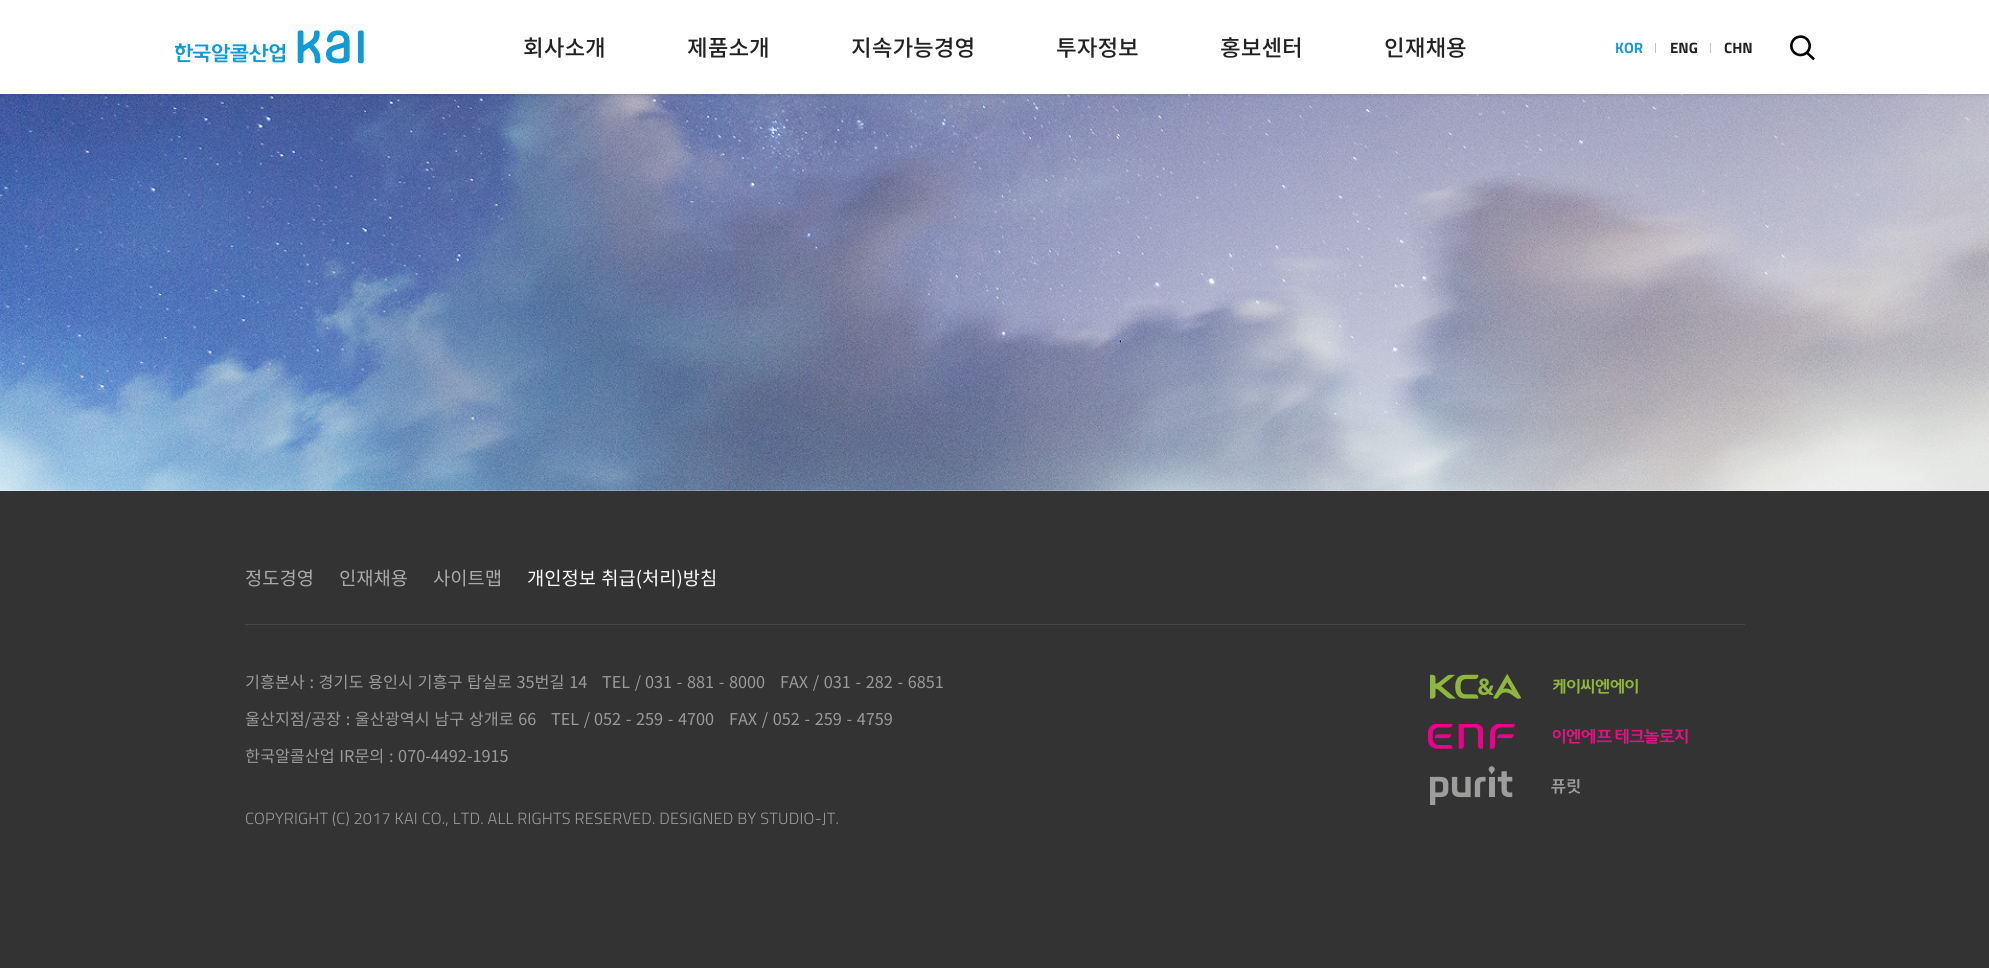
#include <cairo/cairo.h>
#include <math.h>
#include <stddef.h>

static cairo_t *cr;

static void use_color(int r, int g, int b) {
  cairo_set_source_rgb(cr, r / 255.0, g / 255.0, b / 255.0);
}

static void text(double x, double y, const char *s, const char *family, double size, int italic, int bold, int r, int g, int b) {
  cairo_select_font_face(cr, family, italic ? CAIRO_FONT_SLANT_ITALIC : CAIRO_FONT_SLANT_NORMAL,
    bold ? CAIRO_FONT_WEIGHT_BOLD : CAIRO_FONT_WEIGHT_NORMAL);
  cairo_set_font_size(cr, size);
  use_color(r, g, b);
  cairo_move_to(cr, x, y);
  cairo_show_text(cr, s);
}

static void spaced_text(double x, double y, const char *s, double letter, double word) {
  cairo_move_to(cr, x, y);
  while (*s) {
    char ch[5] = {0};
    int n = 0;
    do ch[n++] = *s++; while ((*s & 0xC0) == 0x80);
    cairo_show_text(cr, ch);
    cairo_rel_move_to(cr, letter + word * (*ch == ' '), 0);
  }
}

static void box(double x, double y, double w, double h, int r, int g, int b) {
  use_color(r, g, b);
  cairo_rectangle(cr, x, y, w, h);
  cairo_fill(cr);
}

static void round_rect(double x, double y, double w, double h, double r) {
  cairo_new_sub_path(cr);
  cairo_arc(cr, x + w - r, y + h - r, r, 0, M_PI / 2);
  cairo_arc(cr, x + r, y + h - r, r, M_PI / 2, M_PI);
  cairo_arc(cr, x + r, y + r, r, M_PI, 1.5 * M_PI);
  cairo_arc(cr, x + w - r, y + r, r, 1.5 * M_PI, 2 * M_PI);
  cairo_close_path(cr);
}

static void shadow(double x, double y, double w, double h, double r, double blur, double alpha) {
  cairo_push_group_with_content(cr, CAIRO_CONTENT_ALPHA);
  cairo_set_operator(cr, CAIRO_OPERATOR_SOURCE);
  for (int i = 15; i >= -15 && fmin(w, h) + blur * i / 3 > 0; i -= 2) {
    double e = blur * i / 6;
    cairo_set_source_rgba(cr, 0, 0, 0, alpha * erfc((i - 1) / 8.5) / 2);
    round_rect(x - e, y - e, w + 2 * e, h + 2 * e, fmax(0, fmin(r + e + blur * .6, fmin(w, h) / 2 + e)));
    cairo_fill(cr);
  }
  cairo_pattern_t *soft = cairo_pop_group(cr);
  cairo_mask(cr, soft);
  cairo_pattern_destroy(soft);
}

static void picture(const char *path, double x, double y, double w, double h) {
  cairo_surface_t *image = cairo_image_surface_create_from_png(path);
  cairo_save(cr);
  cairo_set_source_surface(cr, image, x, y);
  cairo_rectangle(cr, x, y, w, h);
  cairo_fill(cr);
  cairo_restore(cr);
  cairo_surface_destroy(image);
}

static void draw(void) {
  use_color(255, 255, 255);
  cairo_paint(cr);
  picture("img_03.png", 0, 94, 1989, 397);
  use_color(0, 0, 0);
  shadow(0, 1, 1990, 94, 0, 2, 0.12);
  box(0, 0, 1989, 94, 255, 255, 255);
  picture("img_01.png", 175, 30, 189, 34);
  box(1655, 43, 1, 10, 199, 199, 199);
  box(1710, 43, 1, 10, 199, 199, 199);
  picture("img_02.png", 1790, 35, 25, 26);
  box(0, 491, 1989, 477, 51, 51, 51);
  box(245, 624, 1500, 1, 71, 71, 71);
  picture("img_04.png", 1430, 674, 91, 25);
  picture("img_05.png", 1553, 679, 85, 15);
  picture("img_06.png", 1428, 724, 87, 25);
  picture("img_07.png", 1553, 729, 135, 15);
  picture("img_08.png", 1430, 766, 83, 39);
  picture("img_09.png", 1551, 779, 29, 15);
  text(523, 56, "회사소개", "Noto Sans CJK KR Medium", 22.5, 0, 0, 34, 34, 34);
  text(687, 56, "제품소개", "Noto Sans CJK KR Medium", 22.5, 0, 0, 34, 34, 34);
  text(851, 56, "지속가능경영", "Noto Sans CJK KR Medium", 22.5, 0, 0, 34, 34, 34);
  text(1056, 56, "투자정보", "Noto Sans CJK KR Medium", 22.5, 0, 0, 34, 34, 34);
  text(1220, 56, "홍보센터", "Noto Sans CJK KR Medium", 22.5, 0, 0, 34, 34, 34);
  text(1384, 56, "인재채용", "Noto Sans CJK KR Medium", 22.5, 0, 0, 34, 34, 34);
  text(1615, 53, "KOR", "Titillium Web", 15, 0, 1, 28, 154, 214);
  text(1670, 53, "ENG", "Titillium Web", 15, 0, 1, 34, 34, 34);
  text(1724, 53, "CHN", "Titillium Web", 15, 0, 1, 34, 34, 34);
  text(245, 585, "정도경영", "Noto Sans CJK KR", 18.75, 0, 0, 170, 170, 170);
  text(339, 585, "인재채용", "Noto Sans CJK KR", 18.75, 0, 0, 170, 170, 170);
  text(433, 585, "사이트맵", "Noto Sans CJK KR", 18.75, 0, 0, 170, 170, 170);
  use_color(254, 254, 254);
  spaced_text(527, 585, "개인정보 취급(처리)방침", 0, 1);
  cairo_set_font_size(cr, 16.25);
  use_color(154, 154, 154);
  spaced_text(245, 688, "기흥본사 : 경기도 용인시 기흥구 탑실로 35번길 14", 0, 1);
  spaced_text(602, 688, "TEL /", 0, 1);
  spaced_text(645, 688, "031 - 881 - 8000", 0, 1);
  spaced_text(780, 688, "FAX / 031 - 282 - 6851", 0, 1);
  spaced_text(245, 725, "울산지점/공장 : 울산광역시 남구 상개로 66", 0, 1);
  spaced_text(551, 725, "TEL /", 0, 1);
  spaced_text(594, 725, "052 - 259 - 4700", 0, 1);
  spaced_text(729, 725, "FAX / 052 - 259 - 4759", 0, 1);
  spaced_text(245, 762, "한국알콜산업 IR문의 : 070-4492-1915", 0, 1);
  cairo_select_font_face(cr, "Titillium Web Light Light", CAIRO_FONT_SLANT_NORMAL, CAIRO_FONT_WEIGHT_NORMAL);
  spaced_text(245, 824, "COPYRIGHT (C) 2017 KAI CO., LTD. ALL RIGHTS RESERVED. DESIGNED BY STUDIO-JT.", 0.22, 0);
}

int main(void) {
  cairo_surface_t *surface = cairo_image_surface_create(CAIRO_FORMAT_RGB24, 1989, 968);
  cr = cairo_create(surface);
  cairo_font_options_t *options = cairo_font_options_create();
  cairo_font_options_set_hint_metrics(options, CAIRO_HINT_METRICS_OFF);
  cairo_font_options_set_hint_style(options, CAIRO_HINT_STYLE_NONE);
  cairo_set_font_options(cr, options);
  cairo_set_miter_limit(cr, 4);
  draw();
  cairo_surface_write_to_png(surface, "out.png");
  cairo_font_options_destroy(options);
  cairo_destroy(cr);
  cairo_surface_destroy(surface);
  return 0;
}
